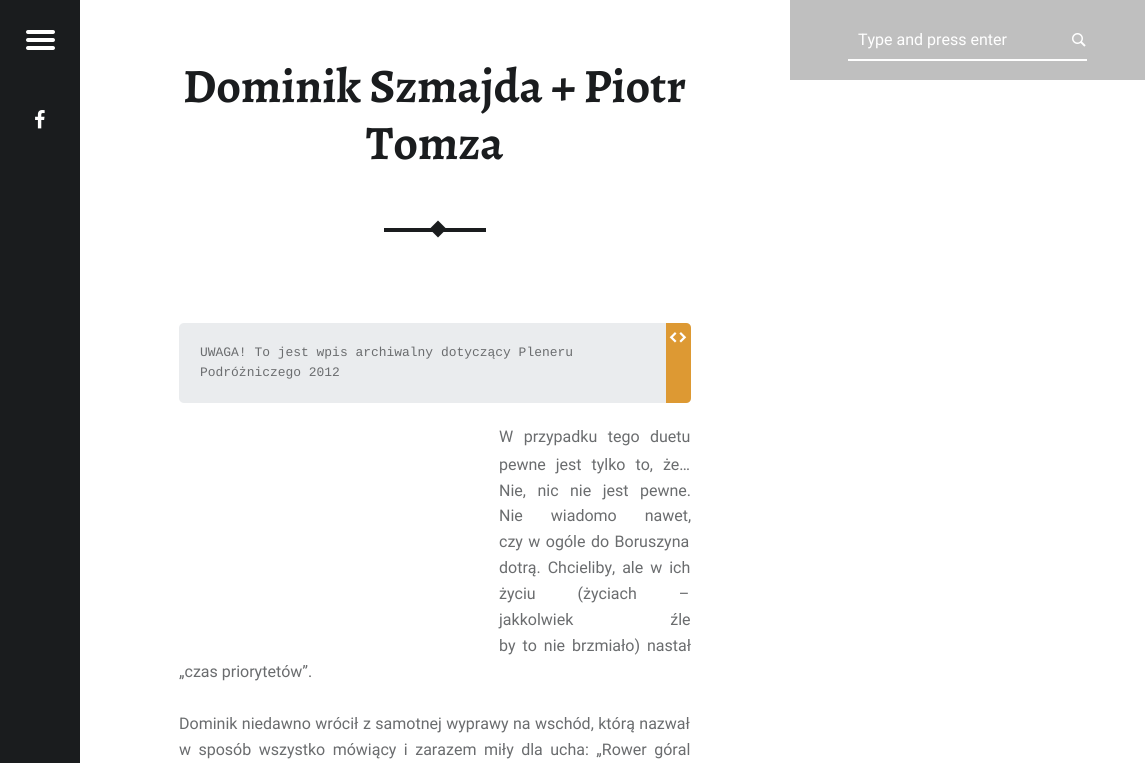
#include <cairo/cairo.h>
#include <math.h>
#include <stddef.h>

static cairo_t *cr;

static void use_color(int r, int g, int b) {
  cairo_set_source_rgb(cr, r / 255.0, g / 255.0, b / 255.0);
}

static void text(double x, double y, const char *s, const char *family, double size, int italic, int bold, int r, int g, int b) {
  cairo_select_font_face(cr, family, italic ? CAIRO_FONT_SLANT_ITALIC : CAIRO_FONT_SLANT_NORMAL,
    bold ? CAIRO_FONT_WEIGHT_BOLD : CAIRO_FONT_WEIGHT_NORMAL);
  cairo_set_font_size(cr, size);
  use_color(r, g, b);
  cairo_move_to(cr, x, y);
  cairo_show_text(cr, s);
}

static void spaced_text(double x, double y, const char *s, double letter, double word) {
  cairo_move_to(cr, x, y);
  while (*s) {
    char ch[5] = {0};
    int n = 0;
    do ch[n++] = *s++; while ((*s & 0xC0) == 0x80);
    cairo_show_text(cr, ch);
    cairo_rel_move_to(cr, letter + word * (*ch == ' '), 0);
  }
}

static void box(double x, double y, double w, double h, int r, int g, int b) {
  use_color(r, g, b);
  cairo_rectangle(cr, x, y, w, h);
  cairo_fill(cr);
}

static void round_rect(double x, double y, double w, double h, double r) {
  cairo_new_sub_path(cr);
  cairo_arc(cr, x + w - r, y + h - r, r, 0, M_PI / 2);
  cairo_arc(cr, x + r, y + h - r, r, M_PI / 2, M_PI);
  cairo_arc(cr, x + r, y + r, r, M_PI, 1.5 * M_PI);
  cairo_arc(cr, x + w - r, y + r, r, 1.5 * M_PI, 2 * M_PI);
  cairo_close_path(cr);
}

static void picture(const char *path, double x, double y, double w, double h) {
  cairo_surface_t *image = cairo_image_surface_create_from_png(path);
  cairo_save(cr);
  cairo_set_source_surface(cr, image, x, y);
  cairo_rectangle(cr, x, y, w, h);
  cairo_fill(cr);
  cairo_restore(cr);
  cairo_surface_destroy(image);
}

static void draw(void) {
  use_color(255, 255, 255);
  cairo_paint(cr);
  box(0, 0, 80, 763, 26, 28, 30);
  use_color(255, 255, 255);
  round_rect(26, 30, 29, 4, 2);
  cairo_fill(cr);
  round_rect(26, 38, 29, 4, 2);
  cairo_fill(cr);
  round_rect(26, 46, 29, 4, 2);
  cairo_fill(cr);
  picture("img_01.png", 35, 110, 10, 19);
  box(790, 0, 355, 80, 191, 191, 191);
  box(848, 59, 239, 2, 255, 255, 255);
  picture("img_02.png", 1072, 33, 14, 14);
  box(384, 228, 102, 4, 26, 28, 30);
  cairo_new_path(cr);
  cairo_move_to(cr, 438, 220.5);
  cairo_line_to(cr, 446.5, 229);
  cairo_line_to(cr, 438, 237.5);
  cairo_line_to(cr, 429.5, 229);
  cairo_close_path(cr);
  cairo_fill(cr);
  use_color(234, 236, 238);
  round_rect(179, 323, 512, 80, 5);
  cairo_fill(cr);
  use_color(221, 153, 51);
  cairo_new_path(cr);
  cairo_move_to(cr, 666, 323);
  cairo_line_to(cr, 686, 323);
  cairo_curve_to(cr, 689, 323, 691, 325, 691, 328);
  cairo_line_to(cr, 691, 398);
  cairo_curve_to(cr, 691, 401, 689, 403, 686, 403);
  cairo_line_to(cr, 666, 403);
  cairo_close_path(cr);
  cairo_fill(cr);
  picture("img_03.png", 669, 332, 18, 11);
  text(858, 45, "Type and press enter", "Roboto", 16, 0, 0, 255, 255, 255);
  text(183, 102, "Dominik Szmajda + Piotr", "Alegreya", 48, 0, 1, 26, 28, 30);
  text(366, 159, "Tomza", "Alegreya", 48, 0, 1, 26, 28, 30);
  text(200, 356, "UWAGA! To jest wpis archiwalny dotyczący Pleneru", "Liberation Mono", 12.95, 0, 0, 106, 108, 110);
  text(200, 376, "Podróżniczego 2012", "Liberation Mono", 12.95, 0, 0, 106, 108, 110);
  cairo_select_font_face(cr, "Roboto", CAIRO_FONT_SLANT_NORMAL, CAIRO_FONT_WEIGHT_NORMAL);
  cairo_set_font_size(cr, 16);
  spaced_text(499, 442, "W przypadku tego duetu", 0, 6.5);
  spaced_text(499, 470, "pewne jest tylko to, że…", 0, 6);
  spaced_text(499, 496, "Nie, nic nie jest pewne.", 0, 7.5);
  spaced_text(499, 521, "Nie wiadomo nawet,", 0, 24);
  spaced_text(499, 547, "czy w ogóle do Boruszyna", 0, 1.5);
  spaced_text(499, 573, "dotrą. Chcieliby, ale w ich", 0, 3);
  spaced_text(499, 599, "życiu (życiach –", 0, 38);
  spaced_text(499, 625, "jakkolwiek źle", 0, 93);
  spaced_text(499, 651, "by to nie brzmiało) nastał", 0, 3);
  text(179, 677, "„czas priorytetów”.", "Roboto", 16, 0, 0, 106, 108, 110);
  spaced_text(179, 729, "Dominik niedawno wrócił z samotnej wyprawy na wschód, którą nazwał", 0, 0.5);
  spaced_text(179, 755, "w sposób wszystko mówiący i zarazem miły dla ucha: „Rower góral", 0, 3.5);
}

int main(void) {
  cairo_surface_t *surface = cairo_image_surface_create(CAIRO_FORMAT_RGB24, 1145, 763);
  cr = cairo_create(surface);
  cairo_font_options_t *options = cairo_font_options_create();
  cairo_font_options_set_hint_metrics(options, CAIRO_HINT_METRICS_OFF);
  cairo_font_options_set_hint_style(options, CAIRO_HINT_STYLE_NONE);
  cairo_set_font_options(cr, options);
  cairo_set_miter_limit(cr, 4);
  draw();
  cairo_surface_write_to_png(surface, "out.png");
  cairo_font_options_destroy(options);
  cairo_destroy(cr);
  cairo_surface_destroy(surface);
  return 0;
}
